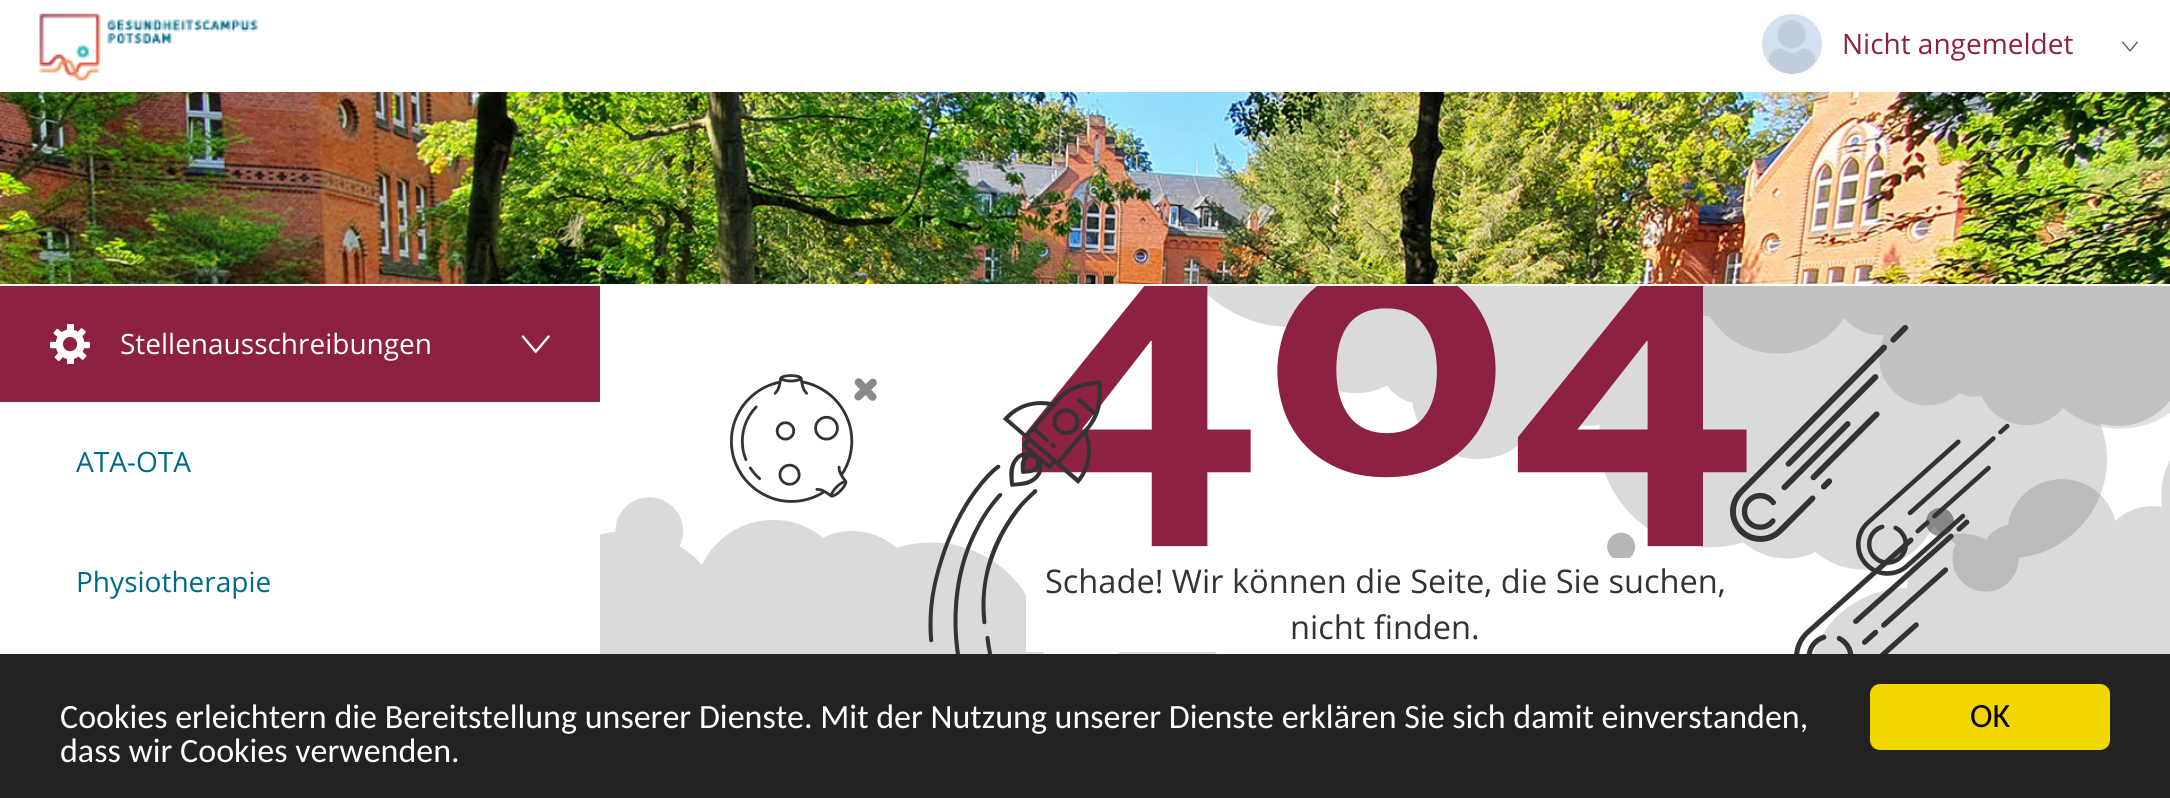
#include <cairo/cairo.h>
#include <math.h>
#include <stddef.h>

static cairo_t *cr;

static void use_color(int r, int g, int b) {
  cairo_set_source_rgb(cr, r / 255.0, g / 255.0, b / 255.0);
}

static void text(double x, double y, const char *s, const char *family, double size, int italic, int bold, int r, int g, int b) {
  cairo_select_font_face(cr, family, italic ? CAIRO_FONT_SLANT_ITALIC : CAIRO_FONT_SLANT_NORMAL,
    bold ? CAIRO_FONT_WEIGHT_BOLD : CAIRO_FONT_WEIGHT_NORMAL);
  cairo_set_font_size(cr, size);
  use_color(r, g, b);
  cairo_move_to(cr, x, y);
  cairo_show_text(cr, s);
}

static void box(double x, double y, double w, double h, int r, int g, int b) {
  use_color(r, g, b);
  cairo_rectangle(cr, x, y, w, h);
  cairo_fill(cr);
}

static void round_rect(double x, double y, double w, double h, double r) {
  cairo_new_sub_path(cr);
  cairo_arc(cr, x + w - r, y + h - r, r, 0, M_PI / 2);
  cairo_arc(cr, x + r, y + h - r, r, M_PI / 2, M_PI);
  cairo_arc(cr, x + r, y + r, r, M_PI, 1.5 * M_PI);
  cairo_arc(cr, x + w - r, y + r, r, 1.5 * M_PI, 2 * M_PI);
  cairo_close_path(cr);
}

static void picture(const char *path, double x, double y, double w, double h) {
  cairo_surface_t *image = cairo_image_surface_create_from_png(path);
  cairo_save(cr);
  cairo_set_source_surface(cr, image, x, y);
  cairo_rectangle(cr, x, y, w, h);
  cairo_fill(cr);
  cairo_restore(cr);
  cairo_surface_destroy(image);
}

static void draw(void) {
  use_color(255, 255, 255);
  cairo_paint(cr);
  picture("img_01.png", 39, 13, 220, 68);
  picture("img_02.png", 1762, 14, 60, 60);
  picture("img_03.png", 2122, 41, 16, 11);
  picture("img_04.png", 0, 92, 2170, 192);
  box(0, 286, 600, 116, 140, 33, 65);
  picture("img_05.png", 50, 324, 40, 40);
  picture("img_06.png", 521, 335, 29, 18);
  picture("img_12.png", 1926, 508, 28, 28);
  picture("img_13.png", 1607, 532, 29, 26);
  picture("img_16.png", 600, 497, 617, 157);
  use_color(218, 218, 218);
  cairo_new_path(cr);
  cairo_move_to(cr, 1718, 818);
  cairo_curve_to(cr, 1710, 770, 1730, 724, 1775, 700);
  cairo_curve_to(cr, 1783, 696, 1798, 690, 1807, 690);
  cairo_curve_to(cr, 1807, 676, 1809, 662, 1815, 649);
  cairo_curve_to(cr, 1830, 612, 1867, 588, 1907, 588);
  cairo_curve_to(cr, 1907, 546, 1951, 521, 1987, 540);
  cairo_line_to(cr, 1987, 539);
  cairo_curve_to(cr, 1991, 532, 1999, 527, 2008, 525);
  cairo_curve_to(cr, 2016, 476, 2080, 462, 2108, 504);
  cairo_curve_to(cr, 2110, 508, 2115, 516, 2115, 521);
  cairo_curve_to(cr, 2128, 509, 2145, 504, 2163, 507);
  cairo_line_to(cr, 2162, 507);
  cairo_curve_to(cr, 2160, 492, 2162, 476, 2169, 462);
  cairo_curve_to(cr, 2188, 418, 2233, 398, 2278, 410);
  cairo_line_to(cr, 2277, 410);
  cairo_line_to(cr, 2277, 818);
  cairo_close_path(cr);
  cairo_fill(cr);
  picture("img_07.png", 1207, 286, 963, 306);
  picture("img_08.png", 1703, 286, 467, 143);
  picture("img_09.png", 730, 374, 124, 129);
  picture("img_17.png", 1022, 286, 725, 261);
  picture("img_18.png", 1794, 519, 176, 135);
  picture("img_10.png", 1730, 324, 179, 218);
  picture("img_11.png", 854, 378, 23, 23);
  picture("img_15.png", 1856, 423, 154, 153);
  box(1026, 595, 189, 57, 255, 255, 255);
  box(0, 654, 2170, 144, 34, 34, 34);
  use_color(241, 214, 0);
  round_rect(1870, 684, 240, 66, 10);
  cairo_fill(cr);
  text(1842, 54, "Nicht angemeldet", "Open Sans", 28, 0, 0, 140, 33, 65);
  text(120, 354, "Stellenausschreibungen", "Open Sans", 28, 0, 0, 255, 255, 255);
  text(76, 472, "ATA-OTA", "Open Sans", 28, 0, 0, 0, 105, 137);
  text(76, 592, "Physiotherapie", "Open Sans", 28, 0, 0, 0, 105, 137);
  text(1045, 593, "Schade! Wir können die Seite, die Sie suchen,", "Open Sans", 32.55, 0, 0, 51, 51, 51);
  picture("img_14.png", 928, 380, 174, 274);
  text(1290, 639, "nicht finden.", "Open Sans", 32.55, 0, 0, 51, 51, 51);
  text(60, 728, "Cookies erleichtern die Bereitstellung unserer Dienste. Mit der Nutzung unserer Dienste erklären Sie sich damit einverstanden,", "Carlito", 34, 0, 0, 255, 255, 255);
  text(60, 762, "dass wir Cookies verwenden.", "Carlito", 34, 0, 0, 255, 255, 255);
  text(1970, 727, "OK", "Carlito", 34, 0, 0, 0, 0, 0);
}

int main(void) {
  cairo_surface_t *surface = cairo_image_surface_create(CAIRO_FORMAT_RGB24, 2170, 798);
  cr = cairo_create(surface);
  cairo_font_options_t *options = cairo_font_options_create();
  cairo_font_options_set_hint_metrics(options, CAIRO_HINT_METRICS_OFF);
  cairo_font_options_set_hint_style(options, CAIRO_HINT_STYLE_NONE);
  cairo_set_font_options(cr, options);
  cairo_set_miter_limit(cr, 4);
  draw();
  cairo_surface_write_to_png(surface, "out.png");
  cairo_font_options_destroy(options);
  cairo_destroy(cr);
  cairo_surface_destroy(surface);
  return 0;
}
